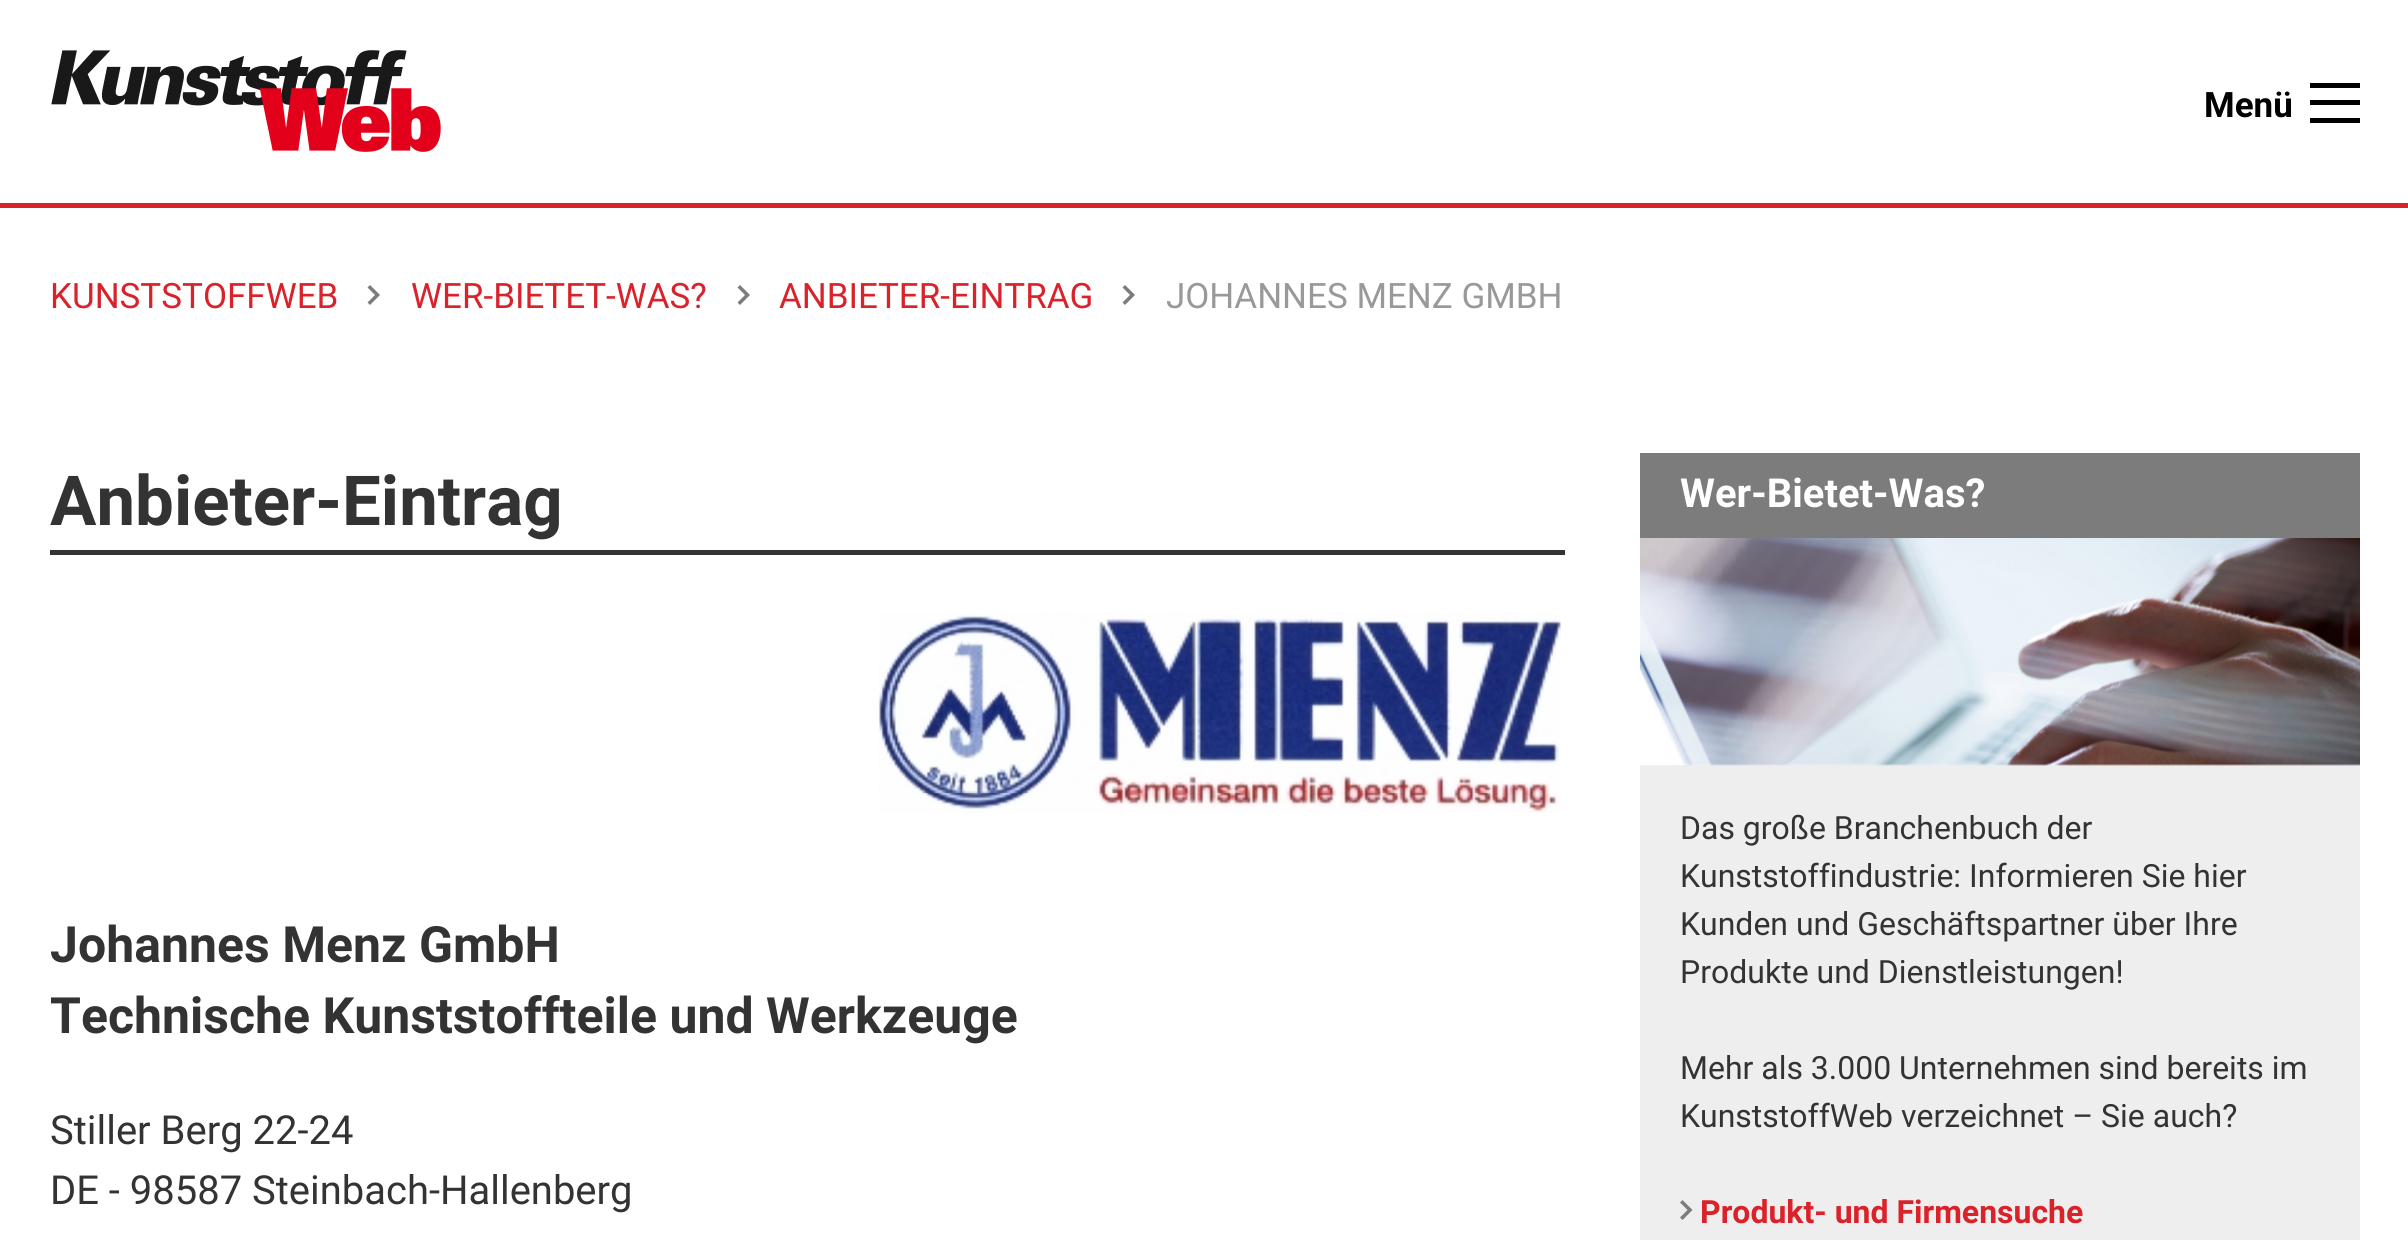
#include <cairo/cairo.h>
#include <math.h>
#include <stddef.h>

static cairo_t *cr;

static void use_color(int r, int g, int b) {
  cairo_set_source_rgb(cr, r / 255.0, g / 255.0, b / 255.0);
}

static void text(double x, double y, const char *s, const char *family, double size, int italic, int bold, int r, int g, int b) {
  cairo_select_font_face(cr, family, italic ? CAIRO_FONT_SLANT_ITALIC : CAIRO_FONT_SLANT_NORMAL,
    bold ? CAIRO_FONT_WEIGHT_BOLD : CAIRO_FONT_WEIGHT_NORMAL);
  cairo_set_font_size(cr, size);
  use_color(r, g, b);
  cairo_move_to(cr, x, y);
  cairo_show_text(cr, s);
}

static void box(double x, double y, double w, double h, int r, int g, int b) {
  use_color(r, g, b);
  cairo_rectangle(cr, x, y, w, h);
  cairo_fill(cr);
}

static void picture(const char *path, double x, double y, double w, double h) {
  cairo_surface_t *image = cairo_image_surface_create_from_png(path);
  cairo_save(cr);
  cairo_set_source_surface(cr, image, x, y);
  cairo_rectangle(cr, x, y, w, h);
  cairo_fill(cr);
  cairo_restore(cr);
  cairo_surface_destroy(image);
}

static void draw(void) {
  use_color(255, 255, 255);
  cairo_paint(cr);
  box(0, 203, 2408, 5, 217, 34, 42);
  picture("img_01.png", 51, 50, 390, 102);
  box(2310, 118, 50, 5, 0, 0, 0);
  box(2310, 100, 50, 5, 0, 0, 0);
  box(2310, 83, 50, 5, 0, 0, 0);
  use_color(124, 124, 124);
  cairo_set_fill_rule(cr, CAIRO_FILL_RULE_EVEN_ODD);
  cairo_new_path(cr);
  cairo_move_to(cr, 367.5, 302.5);
  cairo_line_to(cr, 375, 295);
  cairo_line_to(cr, 367.5, 287.5);
  cairo_line_to(cr, 370, 285);
  cairo_line_to(cr, 380, 295);
  cairo_line_to(cr, 370, 305);
  cairo_close_path(cr);
  cairo_fill(cr);
  cairo_new_path(cr);
  cairo_move_to(cr, 737.5, 302.5);
  cairo_line_to(cr, 745, 295);
  cairo_line_to(cr, 737.5, 287.5);
  cairo_line_to(cr, 740, 285);
  cairo_line_to(cr, 750, 295);
  cairo_line_to(cr, 740, 305);
  cairo_close_path(cr);
  cairo_fill(cr);
  cairo_new_path(cr);
  cairo_move_to(cr, 1122.5, 302.5);
  cairo_line_to(cr, 1130, 295);
  cairo_line_to(cr, 1122.5, 287.5);
  cairo_line_to(cr, 1125, 285);
  cairo_line_to(cr, 1135, 295);
  cairo_line_to(cr, 1125, 305);
  cairo_close_path(cr);
  cairo_fill(cr);
  box(50, 550, 1515, 5, 51, 51, 51);
  picture("img_02.png", 878, 613, 683, 200);
  box(1640, 453, 720, 85, 124, 124, 124);
  box(1640, 765, 720, 475, 238, 238, 238);
  picture("img_03.png", 1640, 538, 720, 228);
  use_color(124, 124, 124);
  cairo_new_path(cr);
  cairo_move_to(cr, 1680, 1217.5);
  cairo_line_to(cr, 1687.5, 1210);
  cairo_line_to(cr, 1680, 1202.5);
  cairo_line_to(cr, 1682.5, 1200);
  cairo_line_to(cr, 1692.5, 1210);
  cairo_line_to(cr, 1682.5, 1220);
  cairo_close_path(cr);
  cairo_fill(cr);
  text(2204, 117, "Menü", "Roboto", 35, 0, 1, 0, 0, 0);
  text(50, 308, "KUNSTSTOFFWEB", "Roboto", 35, 0, 0, 217, 34, 42);
  text(411, 308, "WER-BIETET-WAS?", "Roboto", 35, 0, 0, 217, 34, 42);
  text(779, 308, "ANBIETER-EINTRAG", "Roboto", 35, 0, 0, 217, 34, 42);
  text(1166, 308, "JOHANNES MENZ GMBH", "Roboto", 35, 0, 0, 153, 153, 153);
  text(50, 525, "Anbieter-Eintrag", "Roboto", 69, 0, 1, 51, 51, 51);
  text(50, 962, "Johannes Menz GmbH", "Roboto", 50, 0, 1, 51, 51, 51);
  text(50, 1033, "Technische Kunststoffteile und Werkzeuge", "Roboto", 50, 0, 1, 51, 51, 51);
  text(50, 1144, "Stiller Berg 22-24", "Roboto", 40, 0, 0, 51, 51, 51);
  text(50, 1204, "DE - 98587 Steinbach-Hallenberg", "Roboto", 40, 0, 0, 51, 51, 51);
  text(1680, 507, "Wer-Bietet-Was?", "Roboto", 40, 0, 1, 255, 255, 255);
  text(1680, 839, "Das große Branchenbuch der", "Roboto", 32, 0, 0, 51, 51, 51);
  text(1680, 887, "Kunststoffindustrie: Informieren Sie hier", "Roboto", 32, 0, 0, 51, 51, 51);
  text(1680, 935, "Kunden und Geschäftspartner über Ihre", "Roboto", 32, 0, 0, 51, 51, 51);
  text(1680, 983, "Produkte und Dienstleistungen!", "Roboto", 32, 0, 0, 51, 51, 51);
  text(1680, 1079, "Mehr als 3.000 Unternehmen sind bereits im", "Roboto", 32, 0, 0, 51, 51, 51);
  text(1680, 1127, "KunststoffWeb verzeichnet – Sie auch?", "Roboto", 32, 0, 0, 51, 51, 51);
  text(1700, 1223, "Produkt- und Firmensuche", "Roboto", 32, 0, 1, 217, 34, 42);
}

int main(void) {
  cairo_surface_t *surface = cairo_image_surface_create(CAIRO_FORMAT_RGB24, 2408, 1240);
  cr = cairo_create(surface);
  cairo_font_options_t *options = cairo_font_options_create();
  cairo_font_options_set_hint_metrics(options, CAIRO_HINT_METRICS_OFF);
  cairo_font_options_set_hint_style(options, CAIRO_HINT_STYLE_NONE);
  cairo_set_font_options(cr, options);
  cairo_set_miter_limit(cr, 4);
  draw();
  cairo_surface_write_to_png(surface, "out.png");
  cairo_font_options_destroy(options);
  cairo_destroy(cr);
  cairo_surface_destroy(surface);
  return 0;
}
